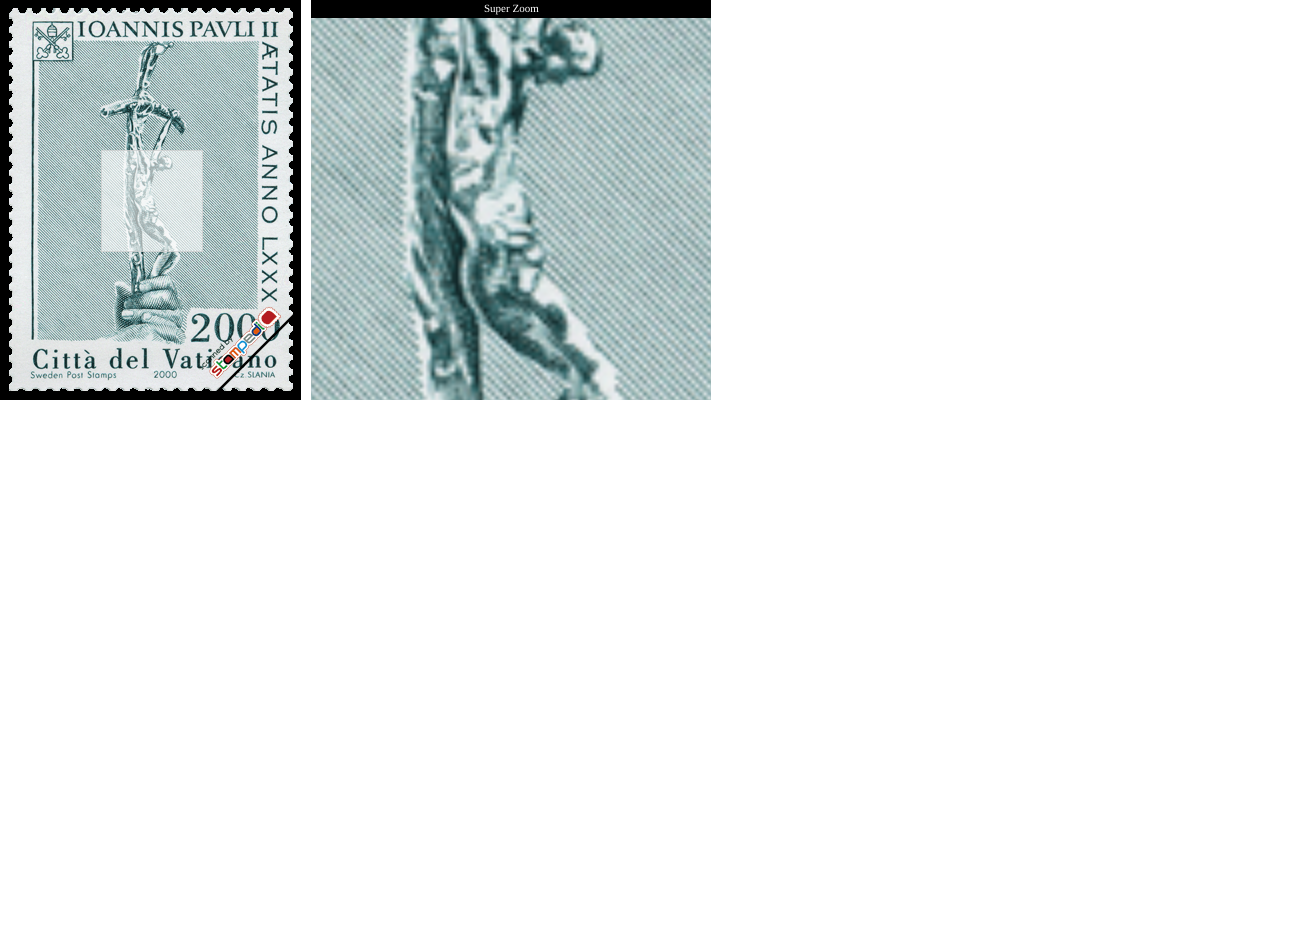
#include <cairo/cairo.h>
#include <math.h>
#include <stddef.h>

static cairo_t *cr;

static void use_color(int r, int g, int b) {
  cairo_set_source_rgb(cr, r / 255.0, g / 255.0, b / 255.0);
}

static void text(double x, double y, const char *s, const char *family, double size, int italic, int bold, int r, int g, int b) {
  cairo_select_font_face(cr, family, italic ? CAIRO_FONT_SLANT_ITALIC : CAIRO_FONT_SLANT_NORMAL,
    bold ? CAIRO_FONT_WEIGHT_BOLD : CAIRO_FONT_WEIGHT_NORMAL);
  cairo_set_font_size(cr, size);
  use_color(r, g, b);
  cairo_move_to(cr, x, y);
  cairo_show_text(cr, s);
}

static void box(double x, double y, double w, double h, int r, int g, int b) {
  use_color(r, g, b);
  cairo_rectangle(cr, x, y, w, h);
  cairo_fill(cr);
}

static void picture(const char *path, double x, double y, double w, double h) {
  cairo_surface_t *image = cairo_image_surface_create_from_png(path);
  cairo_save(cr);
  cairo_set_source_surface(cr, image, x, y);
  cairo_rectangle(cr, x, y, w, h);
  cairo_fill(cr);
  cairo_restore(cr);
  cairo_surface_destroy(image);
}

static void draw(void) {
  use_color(255, 255, 255);
  cairo_paint(cr);
  box(0, 0, 301, 400, 0, 0, 0);
  picture("img_01.png", 9, 8, 284, 383);
  cairo_set_source_rgba(cr, 1, 1, 1, 0.6);
  cairo_rectangle(cr, 101, 150, 102, 102);
  cairo_fill(cr);
  cairo_rectangle(cr, 101.5, 150.5, 101, 101);
  cairo_set_source_rgba(cr, 0.769, 0.769, 0.769, 0.6);
  cairo_set_line_width(cr, 1);
  cairo_stroke(cr);
  box(311, 0, 400, 18, 0, 0, 0);
  picture("img_02.png", 311, 18, 400, 382);
  text(484, 12, "Super Zoom", "Liberation Serif", 11, 0, 0, 255, 255, 255);
}

int main(void) {
  cairo_surface_t *surface = cairo_image_surface_create(CAIRO_FORMAT_RGB24, 1313, 944);
  cr = cairo_create(surface);
  cairo_font_options_t *options = cairo_font_options_create();
  cairo_font_options_set_hint_metrics(options, CAIRO_HINT_METRICS_OFF);
  cairo_font_options_set_hint_style(options, CAIRO_HINT_STYLE_NONE);
  cairo_set_font_options(cr, options);
  cairo_set_miter_limit(cr, 4);
  draw();
  cairo_surface_write_to_png(surface, "out.png");
  cairo_font_options_destroy(options);
  cairo_destroy(cr);
  cairo_surface_destroy(surface);
  return 0;
}
